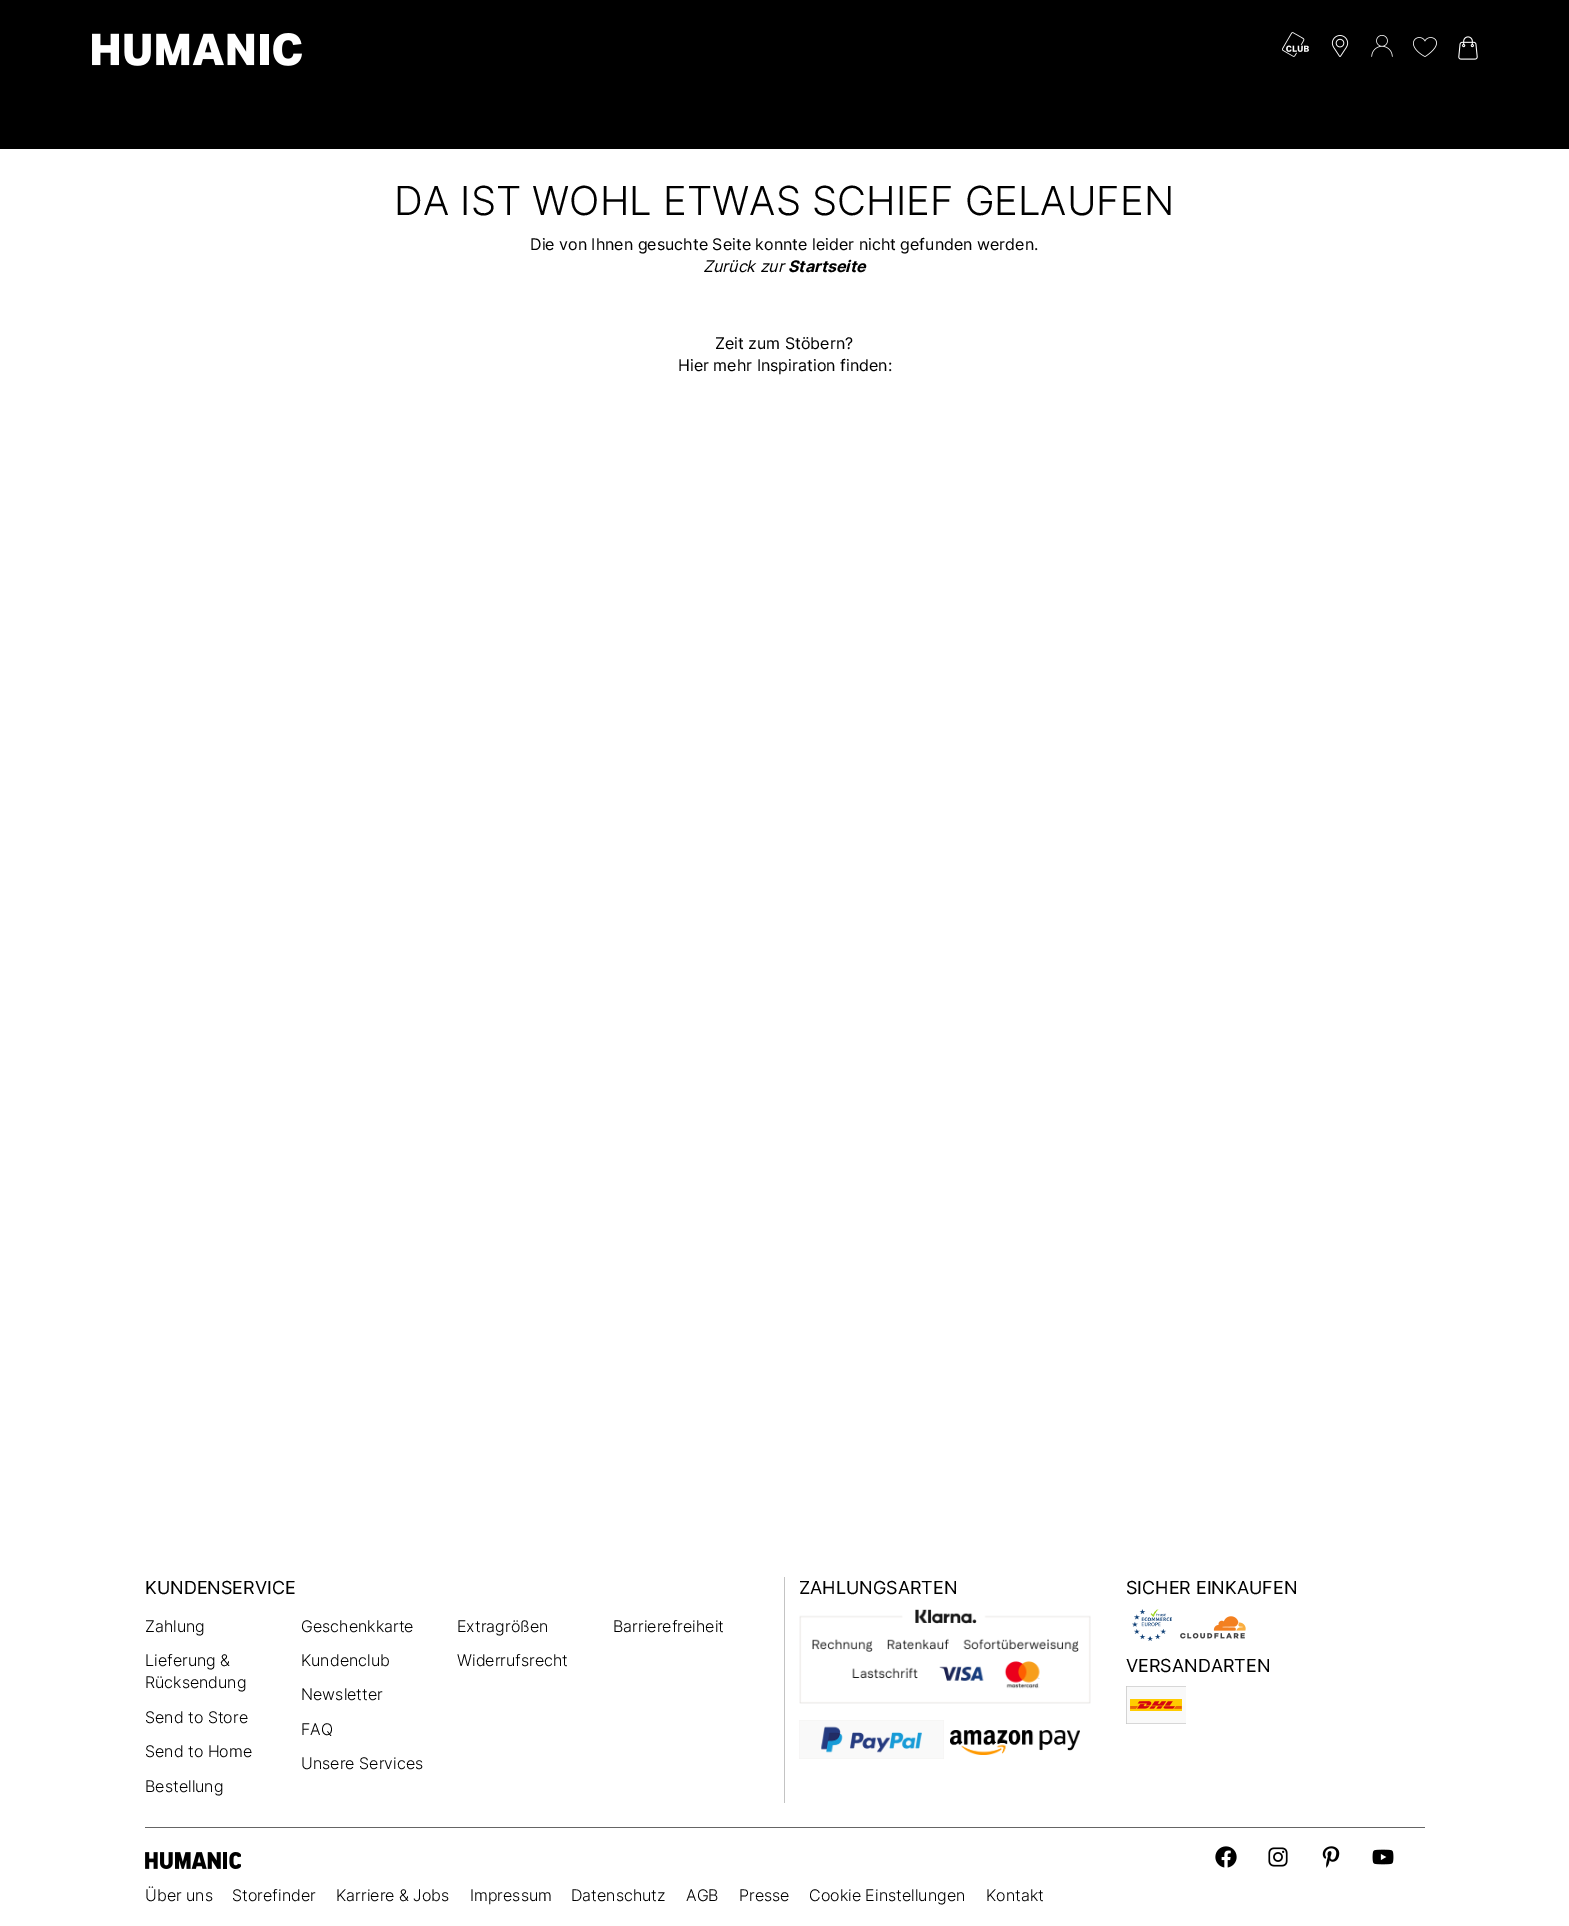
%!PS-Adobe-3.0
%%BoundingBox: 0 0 1569 1926
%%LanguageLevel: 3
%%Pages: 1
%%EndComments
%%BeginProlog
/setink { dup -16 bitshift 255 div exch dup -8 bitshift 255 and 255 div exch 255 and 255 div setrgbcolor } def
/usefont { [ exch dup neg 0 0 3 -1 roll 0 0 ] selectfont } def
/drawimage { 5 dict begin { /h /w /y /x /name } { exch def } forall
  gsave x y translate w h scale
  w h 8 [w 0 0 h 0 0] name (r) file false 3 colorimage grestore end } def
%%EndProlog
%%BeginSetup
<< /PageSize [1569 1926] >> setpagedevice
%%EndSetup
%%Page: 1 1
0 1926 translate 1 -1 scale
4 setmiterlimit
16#FFFFFF setink
0 0 1569 1926 rectfill
16#000000 setink
0 0 1569 149 rectfill
(img1.raw) 92 33 210 33 drawimage
(img2.raw) 1282 32 27 25 drawimage
(img3.raw) 1331 35 18 22 drawimage
(img4.raw) 1371 35 22 22 drawimage
(img5.raw) 1413 37 24 20 drawimage
(img6.raw) 1458 36 20 24 drawimage
/Inter-Light 40 usefont
394 215 moveto (DA IST WOHL ETWAS SCHIEF GELAUFEN) show
/Inter-Regular 16 usefont
530 250 moveto (Die von Ihnen gesuchte Seite konnte leider nicht gefunden werden.) show
/Inter-Italic 16 usefont
703 272 moveto (Zurück zur) show
/Inter-BoldItalic 16 usefont
788 272 moveto (Startseite) show
/Inter-Regular 16 usefont
715 349 moveto (Zeit zum Stöbern?) show
678 371 moveto (Hier mehr Inspiration finden:) show
16#C3C3C3 setink
784 1577 1 226 rectfill
/Inter-Regular 18 usefont
16#000000 setink
145 1594 moveto (KUNDENSERVICE) show
/Inter-Light 16 usefont
[
    [(Zahlung) 145 1632]
    [(Lieferung &) 145 1666]
    [(Rücksendung) 145 1688]
    [(Send to Store) 145 1723]
    [(Send to Home) 145 1757]
    [(Bestellung) 145 1792]
    [(Geschenkkarte) 301 1632]
    [(Kundenclub) 301 1666]
    [(Newsletter) 301 1700]
    [(FAQ) 301 1735]
    [(Unsere Services) 301 1769]
    [(Extragrößen) 457 1632]
    [(Widerrufsrecht) 457 1666]
    [(Barrierefreiheit) 613 1632]
] { aload pop moveto show } forall
/Inter-Regular 18 usefont
799 1594 moveto (ZAHLUNGSARTEN) show
(img7.raw) 799 1609 292 95 drawimage
(img8.raw) 799 1720 145 39 drawimage
(img9.raw) 950 1730 130 25 drawimage
1126 1594 moveto (SICHER EINKAUFEN) show
(img10.raw) 1132 1609 40 32 drawimage
(img11.raw) 1180 1616 66 23 drawimage
1126 1672 moveto (VERSANDARTEN) show
(img12.raw) 1126 1686 60 38 drawimage
16#656565 setink
145 1827 1280 1 rectfill
(img13.raw) 145 1852 96 17 drawimage
(img14.raw) 1215 1846 22 22 drawimage
(img15.raw) 1268 1847 20 20 drawimage
(img16.raw) 1322 1846 18 22 drawimage
(img17.raw) 1372 1849 22 16 drawimage
/Inter-Light 16 usefont
16#000000 setink
[
    [(Über uns) 145 1901]
    [(Storefinder) 232 1901]
    [(Karriere & Jobs) 336 1901]
    [(Impressum) 470 1901]
    [(Datenschutz) 571 1901]
    [(AGB) 686 1901]
    [(Presse) 739 1901]
    [(Cookie Einstellungen) 809 1901]
    [(Kontakt) 986 1901]
] { aload pop moveto show } forall
showpage
%%EOF
